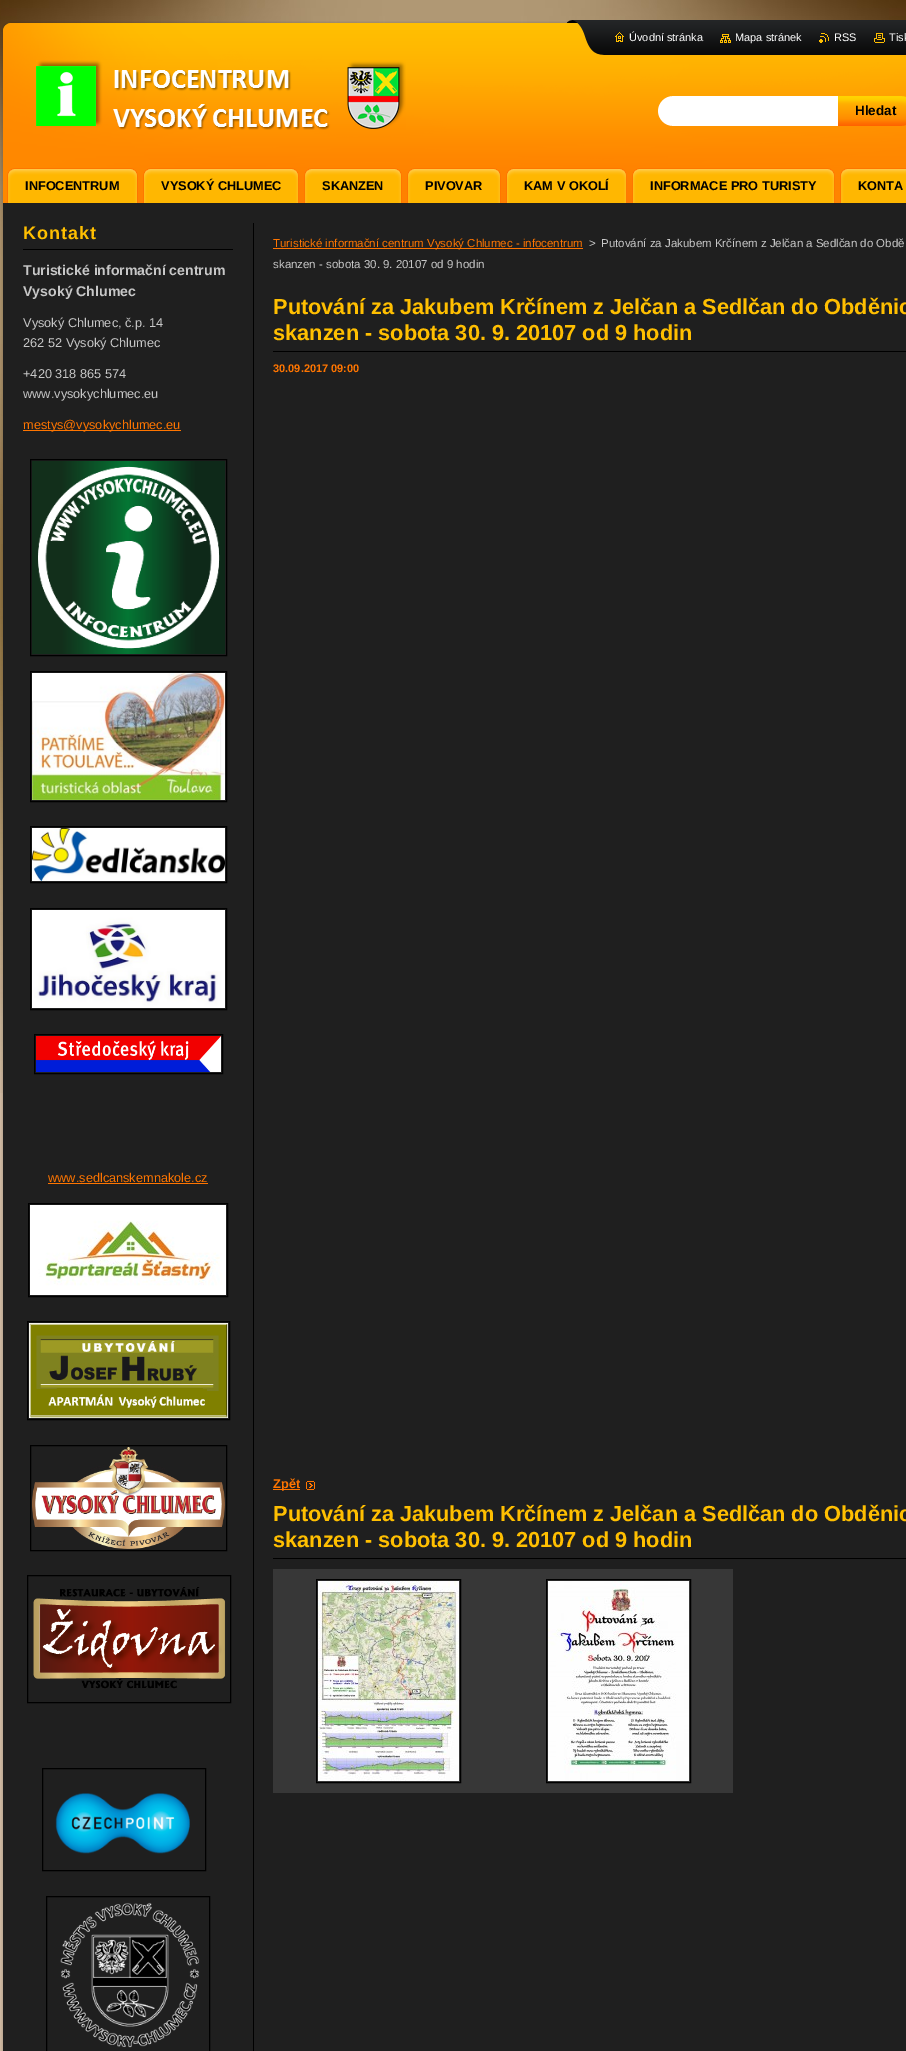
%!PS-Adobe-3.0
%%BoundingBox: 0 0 906 2051
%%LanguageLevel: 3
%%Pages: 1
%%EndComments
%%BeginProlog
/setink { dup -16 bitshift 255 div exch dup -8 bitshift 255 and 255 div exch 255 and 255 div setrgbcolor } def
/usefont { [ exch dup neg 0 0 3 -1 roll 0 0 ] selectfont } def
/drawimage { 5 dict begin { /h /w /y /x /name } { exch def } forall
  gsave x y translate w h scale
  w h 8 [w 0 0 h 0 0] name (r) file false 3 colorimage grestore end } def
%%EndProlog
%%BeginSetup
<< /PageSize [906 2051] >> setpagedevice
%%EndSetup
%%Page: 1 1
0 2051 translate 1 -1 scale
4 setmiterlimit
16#CEB8A1 setink
0 0 906 2051 rectfill
(img1.raw) 0 696 3 397 drawimage
(img2.raw) 0 0 906 696 drawimage
(img3.raw) 1 21 905 182 drawimage
(img4.raw) 36 60 370 70 drawimage
(img5.raw) 567 20 37 35 drawimage
(img6.raw) 604 20 302 35 drawimage
(img7.raw) 615 32 9 10 drawimage
/LiberationSans-Regular 11 usefont
16#FFFFFF setink
629 41 moveto (Úvodní stránka) show
(img8.raw) 720 34 11 9 drawimage
735 41 moveto (Mapa stránek) show
(img9.raw) 819 33 10 10 drawimage
834 41 moveto (RSS) show
(img10.raw) 874 33 11 10 drawimage
889 41 moveto (Tisk) show
(img11.raw) 658 96 180 30 drawimage
(img12.raw) 838 96 68 30 drawimage
/LiberationSans-Bold 13.5 usefont
16#000000 setink
855 115 moveto (Hledat) show
(img13.raw) 7 168 8 35 drawimage
(img14.raw) 15 168 123 35 drawimage
/LiberationSans-Bold 12.75 usefont
25 190 moveto (INFOCENTRUM) show
(img15.raw) 143 168 8 35 drawimage
(img16.raw) 151 168 148 35 drawimage
161 190 moveto (VYSOKÝ CHLUMEC) show
(img17.raw) 304 168 8 35 drawimage
(img18.raw) 312 168 90 35 drawimage
322 190 moveto (SKANZEN) show
(img19.raw) 407 168 8 35 drawimage
(img20.raw) 415 168 86 35 drawimage
425 190 moveto (PIVOVAR) show
(img21.raw) 506 168 8 35 drawimage
(img22.raw) 514 168 113 35 drawimage
524 190 moveto (KAM V OKOLÍ) show
(img23.raw) 632 168 8 35 drawimage
(img24.raw) 640 168 195 35 drawimage
650 190 moveto (INFORMACE PRO TURISTY) show
(img25.raw) 840 168 8 35 drawimage
(img26.raw) 848 168 58 35 drawimage
858 190 moveto (KONTA) show
(img27.raw) 1 203 905 1848 drawimage
253 223 1 1828 rectfill
23 249 210 1 rectfill
/LiberationSans-Bold 18 usefont
16#FFBF01 setink
23 239 moveto 1 0 (Kontakt) ashow
/LiberationSans-Bold 14.1 usefont
16#C7C7C7 setink
23 275 moveto (Turistické informační centrum) show
23 296 moveto (Vysoký Chlumec) show
/LiberationSans-Regular 12.75 usefont
[
    [(Vysoký Chlumec, č.p. 14) 23 327]
    [(262 52 Vysoký Chlumec) 23 347]
    [(+420 318 865 574) 23 378]
    [(www.vysokychlumec.eu) 23 398]
] { aload pop moveto show } forall
16#FF7500 setink
23 430 158 1 rectfill
23 429 moveto (mestys@vysokychlumec.eu) show
16#000000 setink
30.5 459.5 196 196 rectstroke
(img28.raw) 32 461 193 193 drawimage
30.5 671.5 196 130 rectstroke
(img29.raw) 32 673 193 127 drawimage
30.5 826.5 196 56 rectstroke
(img30.raw) 32 828 193 53 drawimage
30.5 908.5 196 101 rectstroke
(img31.raw) 32 910 193 98 drawimage
34.5 1034.5 188 39 rectstroke
(img32.raw) 36 1036 185 36 drawimage
16#FF7500 setink
48 1182 moveto (www.sedlcanskemnakole.cz) show
48 1183 160 1 rectfill
16#000000 setink
28.5 1203.5 199 93 rectstroke
(img33.raw) 30 1205 196 90 drawimage
27.5 1321.5 202 98 rectstroke
(img34.raw) 29 1323 199 95 drawimage
30.5 1445.5 196 105 rectstroke
(img35.raw) 32 1447 193 102 drawimage
27.5 1575.5 203 127 rectstroke
(img36.raw) 33 1587 193 102 drawimage
42.5 1768.5 163 102 rectstroke
(img37.raw) 55 1793 135 61 drawimage
46.5 1896.5 163 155 rectstroke
(img38.raw) 60 1902 140 146 drawimage
16#FF7500 setink
273 248 310 1 rectfill
/LiberationSans-Regular 11.5 usefont
273 247 moveto (Turistické informační centrum Vysoký Chlumec - infocentrum) show
16#C7C7C7 setink
[
    [(>) 589 247]
    [(Putování za Jakubem Krčínem z Jelčan a Sedlčan do Obdě) 601 247]
    [(skanzen - sobota 30. 9. 20107 od 9 hodin) 273 268]
] { aload pop moveto show } forall
16#000000 setink
273 351 633 1 rectfill
/LiberationSans-Bold 21.75 usefont
16#FFBF01 setink
273 314 moveto (Putování za Jakubem Krčínem z Jelčan a Sedlčan do Obděnic) show
273 340 moveto (skanzen - sobota 30. 9. 20107 od 9 hodin) show
/LiberationSans-Bold 11 usefont
16#FF7500 setink
273 372 moveto (30.09.2017 09:00) show
(img39.raw) 306 1481 9 9 drawimage
273 1489 27 1 rectfill
/LiberationSans-Bold 12.75 usefont
273 1488 moveto (Zpět) show
16#000000 setink
273 1558 633 1 rectfill
/LiberationSans-Bold 21.75 usefont
16#FFBF01 setink
273 1521 moveto (Putování za Jakubem Krčínem z Jelčan a Sedlčan do Obděnic) show
273 1547 moveto (skanzen - sobota 30. 9. 20107 od 9 hodin) show
16#373737 setink
273 1569 460 224 rectfill
16#000000 setink
316.5 1579.5 144 203 rectstroke
(img40.raw) 318 1581 141 200 drawimage
546.5 1579.5 144 203 rectstroke
(img41.raw) 548 1581 141 200 drawimage
showpage
%%EOF
